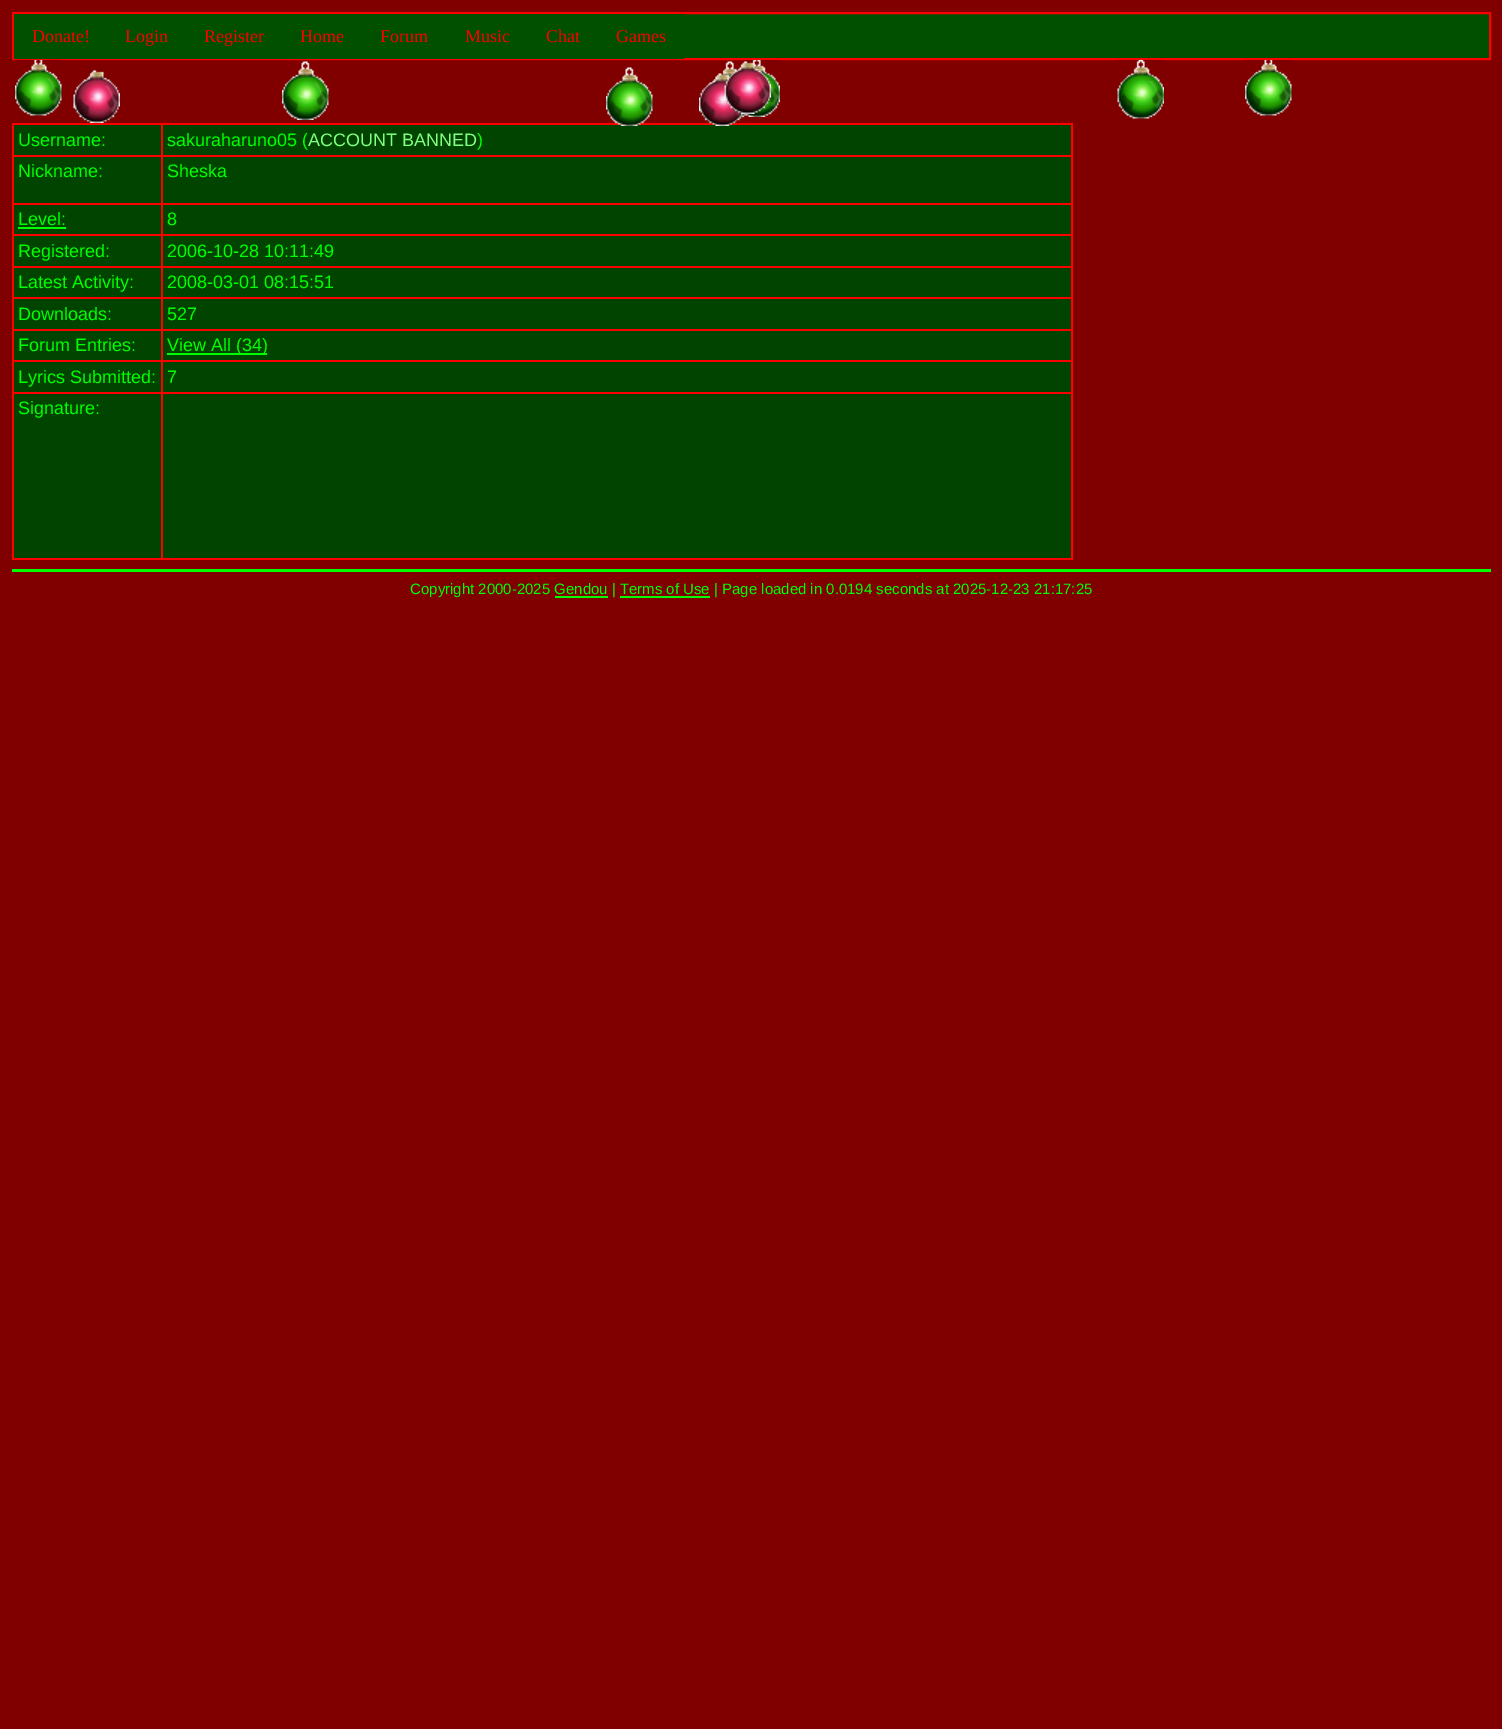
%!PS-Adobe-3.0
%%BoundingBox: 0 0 1502 1729
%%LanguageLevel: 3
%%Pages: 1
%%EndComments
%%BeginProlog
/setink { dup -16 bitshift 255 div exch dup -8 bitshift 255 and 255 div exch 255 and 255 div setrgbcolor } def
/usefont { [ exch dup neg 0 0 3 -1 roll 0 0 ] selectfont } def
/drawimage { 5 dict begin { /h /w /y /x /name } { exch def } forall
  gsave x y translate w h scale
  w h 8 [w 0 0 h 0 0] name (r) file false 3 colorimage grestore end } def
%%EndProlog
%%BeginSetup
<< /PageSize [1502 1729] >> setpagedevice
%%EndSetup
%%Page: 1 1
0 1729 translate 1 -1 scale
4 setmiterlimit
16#800000 setink
0 0 1502 1729 rectfill
16#005000 setink
684 14 805 44 rectfill
16#FF0000 setink
2 setlinewidth
13 13 1477 46 rectstroke
16#005000 setink
14 14 670 45 rectfill
/LiberationSerif-Regular 18 usefont
16#FF0000 setink
[
    [(Donate!) 32 42]
    [(Login) 125 42]
    [(Register) 204 42]
    [(Home) 300 42]
    [(Forum) 380 42]
    [(Music) 465 42]
    [(Chat) 546 42]
    [(Games) 616 42]
] { aload pop moveto show } forall
(img1.raw) 15 60 47 56 drawimage
(img2.raw) 282 61 47 59 drawimage
(img4.raw) 745 60 35 57 drawimage
(img3.raw) 709 61 39 59 drawimage
(img5.raw) 1117 60 47 59 drawimage
(img6.raw) 1245 60 47 56 drawimage
(img7.raw) 73 70 47 53 drawimage
[
    [14 125 1057 433 16#004400]
    [1071 123 2 437 16#FF0000]
    [161 123 912 2 16#FF0000]
] { aload pop setink rectfill } forall
(img8.raw) 606 67 47 59 drawimage
(img9.raw) 699 73 44 53 drawimage
(img10.raw) 724 61 47 53 drawimage
[
    [12 558 1061 2 16#FF0000]
    [161 155 912 2 16#FF0000]
    [161 203 912 2 16#FF0000]
    [161 234 912 2 16#FF0000]
    [161 266 912 2 16#FF0000]
    [161 297 912 2 16#FF0000]
    [161 329 912 2 16#FF0000]
    [161 360 912 2 16#FF0000]
    [161 392 912 2 16#FF0000]
    [161 392 2 168 16#FF0000]
    [12 392 150 2 16#FF0000]
    [161 360 2 33 16#FF0000]
    [12 360 150 2 16#FF0000]
    [161 329 2 33 16#FF0000]
    [12 329 150 2 16#FF0000]
    [161 297 2 33 16#FF0000]
    [12 297 150 2 16#FF0000]
    [161 266 2 33 16#FF0000]
    [12 266 150 2 16#FF0000]
    [161 234 2 33 16#FF0000]
    [12 234 150 2 16#FF0000]
    [161 203 2 33 16#FF0000]
    [12 203 150 2 16#FF0000]
    [161 155 2 49 16#FF0000]
    [12 155 150 2 16#FF0000]
    [161 123 2 33 16#FF0000]
    [12 123 150 2 16#FF0000]
    [12 392 2 168 16#FF0000]
    [12 360 2 33 16#FF0000]
    [12 329 2 33 16#FF0000]
    [12 297 2 33 16#FF0000]
    [12 266 2 33 16#FF0000]
    [12 234 2 33 16#FF0000]
    [12 203 2 33 16#FF0000]
    [12 155 2 49 16#FF0000]
    [12 123 2 33 16#FF0000]
] { aload pop setink rectfill } forall
/LiberationSans-Regular 18 usefont
16#00FF00 setink
18 146 moveto (Username:) show
167 146 moveto (sakuraharuno05 \() show
16#80FF80 setink
308 146 moveto (ACCOUNT BANNED) show
16#00FF00 setink
[
    [(\)) 477 146]
    [(Nickname:) 18 177]
    [(Sheska) 167 177]
    [(Level:) 18 225]
] { aload pop moveto show } forall
18 227 48 2 rectfill
[
    [(8) 167 225]
    [(Registered:) 18 257]
    [(2006-10-28 10:11:49) 167 257]
    [(Latest Activity:) 18 288]
    [(2008-03-01 08:15:51) 167 288]
    [(Downloads:) 18 320]
    [(527) 167 320]
    [(Forum Entries:) 18 351]
] { aload pop moveto show } forall
167 353 100 2 rectfill
[
    [(View All \(34\)) 167 351]
    [(Lyrics Submitted:) 18 383]
    [(7) 167 383]
    [(Signature:) 18 414]
] { aload pop moveto show } forall
12 569 1479 3 rectfill
/LiberationSans-Regular 15 usefont
410 594 moveto (Copyright 2000-2025 Gendou | Terms of Use | Page loaded in 0.0194 seconds at 2025-12-23 21:17:25) show
555 596 53 2 rectfill
620 596 90 2 rectfill
showpage
%%EOF
